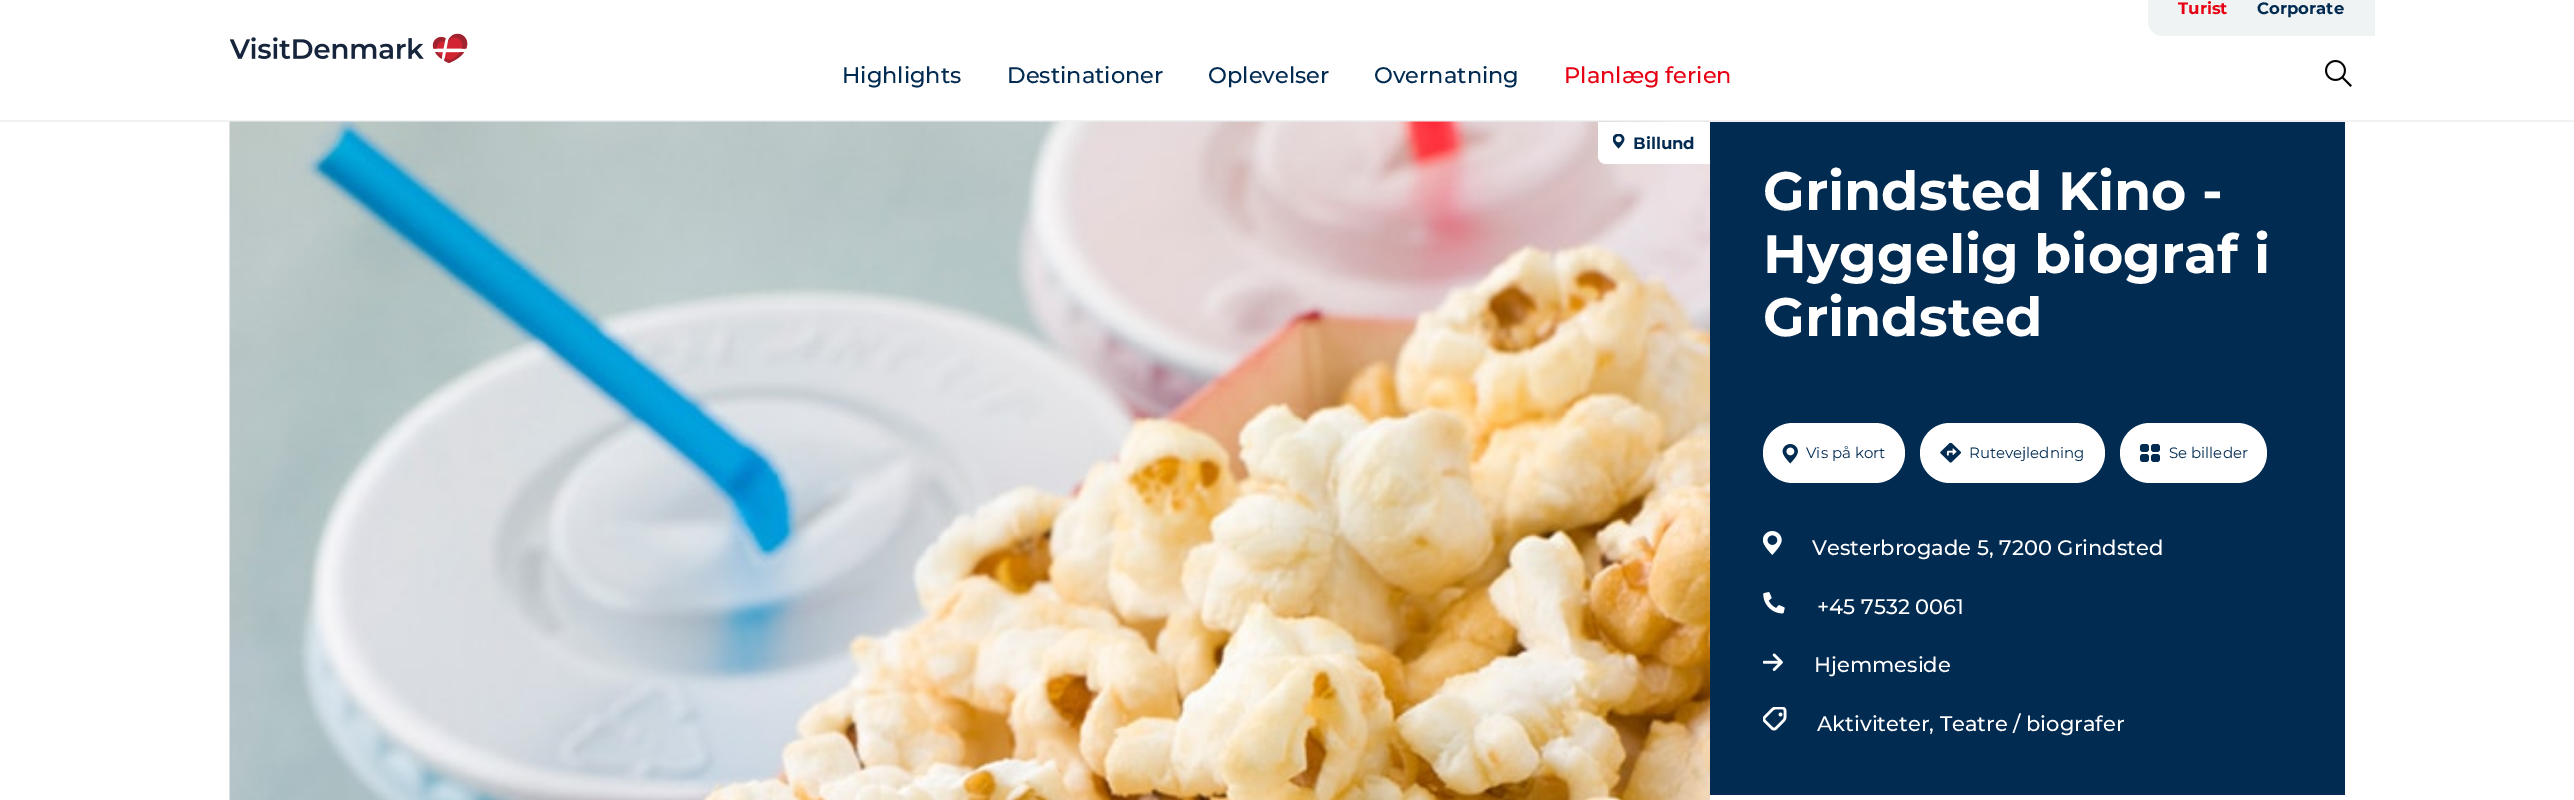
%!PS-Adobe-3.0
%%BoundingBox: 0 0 2574 800
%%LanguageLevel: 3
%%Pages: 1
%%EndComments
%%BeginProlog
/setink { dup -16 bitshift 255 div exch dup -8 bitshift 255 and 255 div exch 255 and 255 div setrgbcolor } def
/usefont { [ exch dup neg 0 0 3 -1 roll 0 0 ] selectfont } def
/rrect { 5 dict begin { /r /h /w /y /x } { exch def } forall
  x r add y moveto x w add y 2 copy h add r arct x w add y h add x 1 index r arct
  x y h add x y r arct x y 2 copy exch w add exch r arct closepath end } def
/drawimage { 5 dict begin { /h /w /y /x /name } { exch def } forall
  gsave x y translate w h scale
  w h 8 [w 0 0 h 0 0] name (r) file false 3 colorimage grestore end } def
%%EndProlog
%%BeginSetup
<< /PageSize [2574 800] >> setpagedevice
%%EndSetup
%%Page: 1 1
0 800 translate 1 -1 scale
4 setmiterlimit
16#FFFFFF setink
0 0 2574 800 rectfill
16#F0F1F3 setink
0 120 2574 2 rectfill
(img1.raw) 230 33 238 30 drawimage
16#EFF3F4 setink
2148 -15 moveto 2375 -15 lineto 2375 36 lineto 2163 36 lineto 2154.5 36 2148 29.5 2148 21 curveto closepath fill
/Montserrat-Bold 16.5 usefont
16#E70013 setink
2178 14 moveto (Turist) show
16#022B52 setink
2257 14 moveto (Corporate) show
/Montserrat-Medium 22.5 usefont
[
    [(Highlights) 842 83]
    [(Destinationer) 1007 83]
    [(Oplevelser) 1208 83]
    [(Overnatning) 1374 83]
] { aload pop moveto show } forall
16#E70013 setink
1564 83 moveto (Planlæg ferien) show
(img2.raw) 2325 60 27 27 drawimage
(img3.raw) 229 121 1481 679 drawimage
16#FFFFFF setink
1598 122 moveto 1710 122 lineto 1710 164 lineto 1606 164 lineto 1601.5 164 1598 160.5 1598 156 curveto closepath fill
(img4.raw) 1613 134 12 15 drawimage
/Montserrat-Bold 16.5 usefont
16#022B52 setink
1633 149 moveto (Billund) show
1710 122 635 673 rectfill
/Montserrat-Bold 54 usefont
16#FFFFFF setink
[
    [(Grindsted Kino -) 1763 210]
    [(Hyggelig biograf i) 1763 273]
    [(Grindsted) 1763 336]
] { aload pop moveto show } forall
1763 423 142 60 30 rrect fill
(img5.raw) 1782 444 16 20 drawimage
/Montserrat-Regular 15 usefont
16#022B52 setink
1806 458 moveto (Vis på kort) show
16#FFFFFF setink
1920 423 185 60 30 rrect fill
(img6.raw) 1940 443 21 20 drawimage
16#022B52 setink
1969 458 moveto (Rutevejledning) show
16#FFFFFF setink
2120 423 147 60 30 rrect fill
16#022B52 setink
2151 444 9 8 3 rrect fill
2151 454 9 8 3 rrect fill
2140 444 9 8 3 rrect fill
2140 454 9 8 3 rrect fill
2169 458 moveto (Se billeder) show
(img7.raw) 1763 531 19 24 drawimage
/Montserrat-Medium 21 usefont
16#FFFFFF setink
1812 555 moveto (Vesterbrogade 5, 7200 Grindsted) show
(img8.raw) 1763 592 22 22 drawimage
1817 614 moveto (+45 7532 0061) show
(img9.raw) 1763 653 20 18 drawimage
1814 672 moveto (Hjemmeside) show
(img10.raw) 1763 707 24 24 drawimage
1817 731 moveto (Aktiviteter, Teatre / biografer) show
showpage
%%EOF
